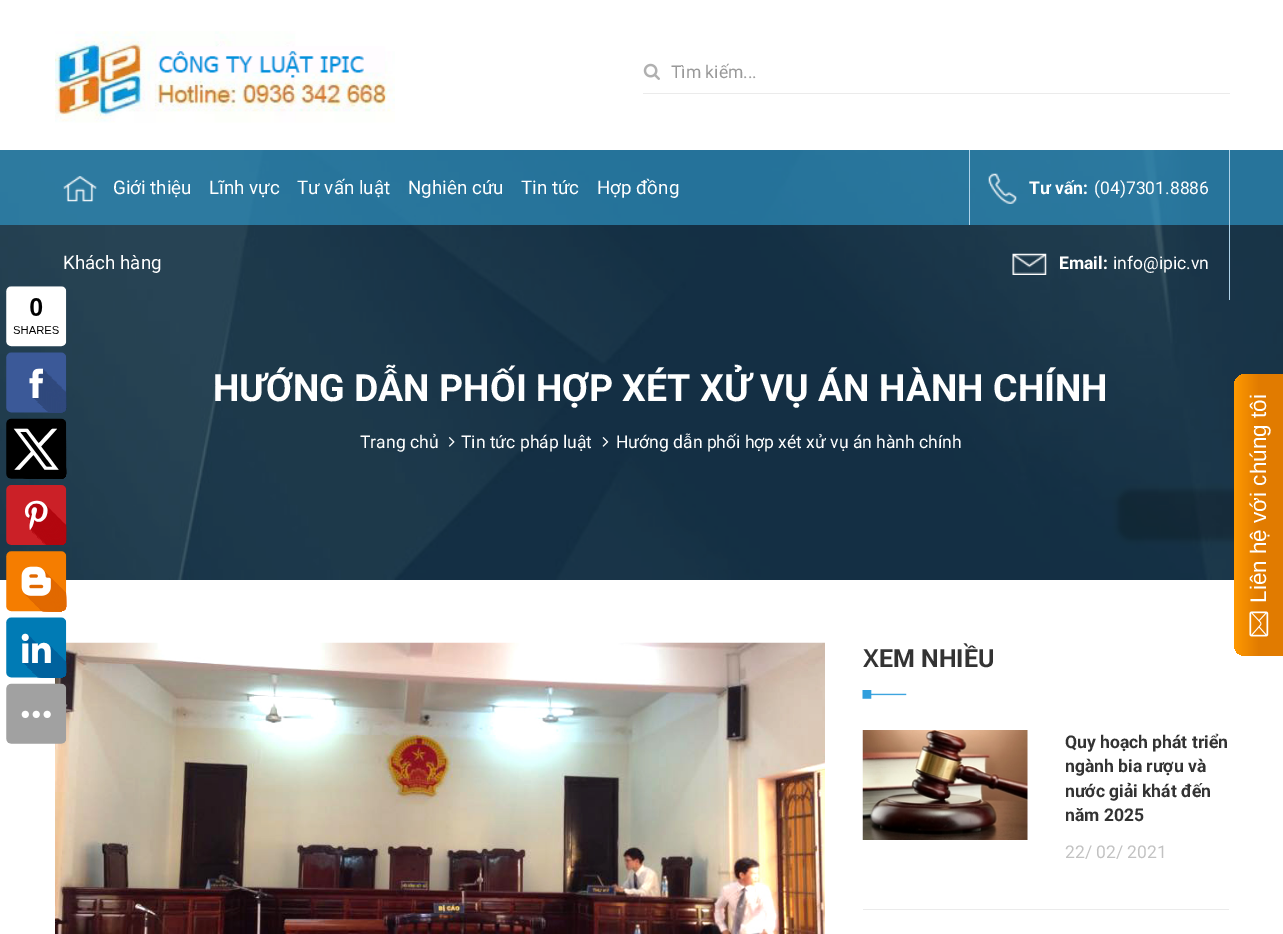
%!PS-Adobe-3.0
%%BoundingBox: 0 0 1283 934
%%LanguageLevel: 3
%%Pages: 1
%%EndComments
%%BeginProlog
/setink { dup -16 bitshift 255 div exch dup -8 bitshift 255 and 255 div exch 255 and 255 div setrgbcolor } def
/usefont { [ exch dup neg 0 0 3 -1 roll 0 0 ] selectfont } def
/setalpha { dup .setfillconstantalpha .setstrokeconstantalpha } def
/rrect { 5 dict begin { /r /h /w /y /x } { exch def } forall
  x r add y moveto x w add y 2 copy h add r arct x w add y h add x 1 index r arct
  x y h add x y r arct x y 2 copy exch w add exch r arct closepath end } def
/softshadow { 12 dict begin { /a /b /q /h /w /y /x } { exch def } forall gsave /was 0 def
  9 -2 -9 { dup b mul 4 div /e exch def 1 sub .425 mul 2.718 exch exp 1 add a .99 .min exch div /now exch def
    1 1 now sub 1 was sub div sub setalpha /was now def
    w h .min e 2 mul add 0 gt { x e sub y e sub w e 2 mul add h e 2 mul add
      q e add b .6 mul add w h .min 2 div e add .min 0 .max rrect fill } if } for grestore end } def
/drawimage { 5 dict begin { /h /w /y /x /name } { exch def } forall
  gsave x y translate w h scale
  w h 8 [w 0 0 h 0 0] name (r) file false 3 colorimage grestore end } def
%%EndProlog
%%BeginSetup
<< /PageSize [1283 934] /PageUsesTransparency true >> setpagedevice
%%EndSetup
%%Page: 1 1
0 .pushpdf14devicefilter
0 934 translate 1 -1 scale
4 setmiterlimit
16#FFFFFF setink
0 0 1283 934 rectfill
(img7.raw) 0 150 1283 430 drawimage
(img10.raw) 55 642 770 292 drawimage
(img1.raw) 6 286 61 458 drawimage
(img2.raw) 55 31 340 92 drawimage
16#EBEBEB setink
643 93 587 1 rectfill
(img3.raw) 643 63 17 17 drawimage
/Roboto-Regular 17.5 usefont
16#999999 setink
671 78 moveto (Tìm kiếm...) show
0.6 setalpha
16#319FD3 setink
0 150 1283 75 rectfill
1 setalpha
(img4.raw) 63 176 34 26 drawimage
/Roboto-Regular 18.75 usefont
16#FFFFFF setink
[
    [(Giới thiệu) 113 194]
    [(Lĩnh vực) 209 194]
    [(Tư vấn luật) 297 194]
    [(Nghiên cứu) 408 194]
    [(Tin tức) 521 194]
    [(Hợp đồng) 597 194]
    [(Khách hàng) 63 269]
] { aload pop moveto show } forall
16#AFD3E9 setink
1229 150 1 150 rectfill
969 150 1 75 rectfill
(img5.raw) 988 173 29 31 drawimage
/Roboto-Bold 17.5 usefont
16#FFFFFF setink
1029 194 moveto (Tư vấn:) show
/Roboto-Regular 17.5 usefont
1094 194 moveto (\(04\)7301.8886) show
(img6.raw) 1012 253 35 22 drawimage
/Roboto-Bold 17.5 usefont
1059 269 moveto (Email:) show
/Roboto-Regular 17.5 usefont
1113 269 moveto (info@ipic.vn) show
/Roboto-Bold 37.5 usefont
213 401 moveto (HƯỚNG DẪN PHỐI HỢP XÉT XỬ VỤ ÁN HÀNH CHÍNH) show
/Roboto-Regular 17.5 usefont
360 448 moveto (Trang chủ) show
(img8.raw) 448 437 7 10 drawimage
461 448 moveto (Tin tức pháp luật) show
(img9.raw) 602 437 7 10 drawimage
616 448 moveto (Hướng dẫn phối hợp xét xử vụ án hành chính) show
(img11.raw) 862 690 45 9 drawimage
/NotoSans-SemiBold 25 usefont
16#333333 setink
863 667 moveto (X) show
/Roboto-Bold 25 usefont
879 667 moveto (EM NHIỀU) show
16#EBEBEB setink
863 909 366 1 rectfill
(img12.raw) 862 730 166 110 drawimage
/Roboto-Bold 17.5 usefont
16#333333 setink
[
    [(Quy hoạch phát triển) 1065 748]
    [(ngành bia rượu và) 1065 772]
    [(nước giải khát đến) 1065 797]
    [(năm 2025) 1065 821]
] { aload pop moveto show } forall
/Roboto-Regular 17.5 usefont
16#C2C2C2 setink
1065 858 moveto (22/ 02/ 2021) show
16#000000 setink
1118 490 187 50 13 3 0.2 softshadow
gsave 1234 644 moveto 1234 386 lineto 1234 380 1239 374 1246 374 curveto 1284 374 lineto 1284 656 lineto 1246 656 lineto 1239 656 1234 651 1234 644 curveto closepath clip newpath
<< /ShadingType 2 /ColorSpace /DeviceRGB /Coords [1234 515 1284 515] /Extend [true true] /Function << /FunctionType 3 /Domain [0 1] /Functions [<< /FunctionType 2 /Domain [0 1] /C0 [1 0.6 0] /C1 [0.882 0.482 0] /N 1 >> << /FunctionType 2 /Domain [0 1] /C0 [0.882 0.482 0] /C1 [0.882 0.482 0] /N 1 >>] /Bounds [0.5] /Encode [0 1 0 1] >> >> shfill grestore
/LiberationSans-Regular 22.5 usefont
16#FFFFFF setink
gsave 1266 603 translate -90 rotate 0 0 moveto (Liên hệ với chúng tôi) show grestore
(img13.raw) 1249 611 20 26 drawimage
.poppdf14devicefilter showpage
%%EOF
